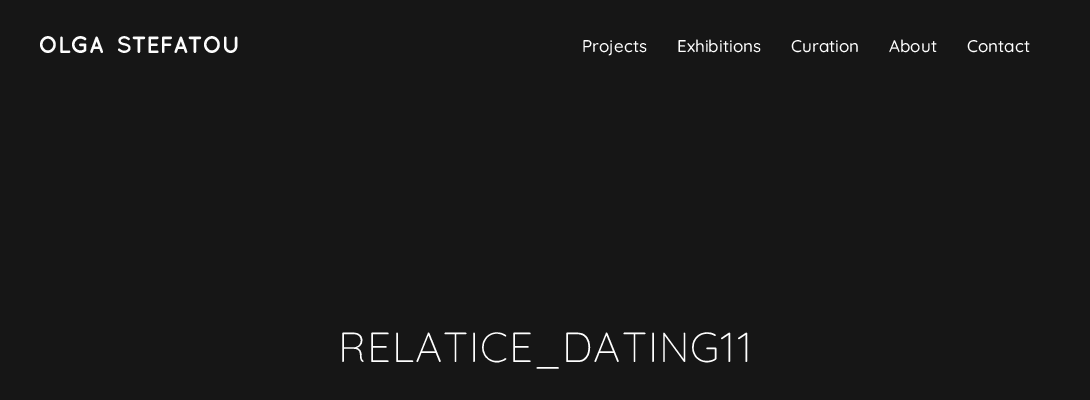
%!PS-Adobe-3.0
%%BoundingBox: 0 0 1090 400
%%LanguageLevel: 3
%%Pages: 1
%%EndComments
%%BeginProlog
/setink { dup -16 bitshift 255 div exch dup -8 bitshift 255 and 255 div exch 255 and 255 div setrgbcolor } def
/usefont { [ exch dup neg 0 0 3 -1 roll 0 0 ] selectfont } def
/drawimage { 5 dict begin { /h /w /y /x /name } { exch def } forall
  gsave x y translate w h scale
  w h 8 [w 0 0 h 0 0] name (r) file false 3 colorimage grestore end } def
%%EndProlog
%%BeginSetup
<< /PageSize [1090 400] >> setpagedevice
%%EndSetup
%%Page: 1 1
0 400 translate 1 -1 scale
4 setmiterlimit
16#161616 setink
0 0 1090 400 rectfill
(img1.raw) 40 36 198 17 drawimage
/Quicksand-Medium 17 usefont
16#FFFFFF setink
[
    [(Projects) 582 52]
    [(Exhibitions) 677 52]
    [(Curation) 791 52]
    [(About) 889 52]
    [(Contact) 967 52]
] { aload pop moveto show } forall
/Quicksand-Light 42 usefont
338 362 moveto 1 0 (RELATICE_DATING11) ashow
showpage
%%EOF
